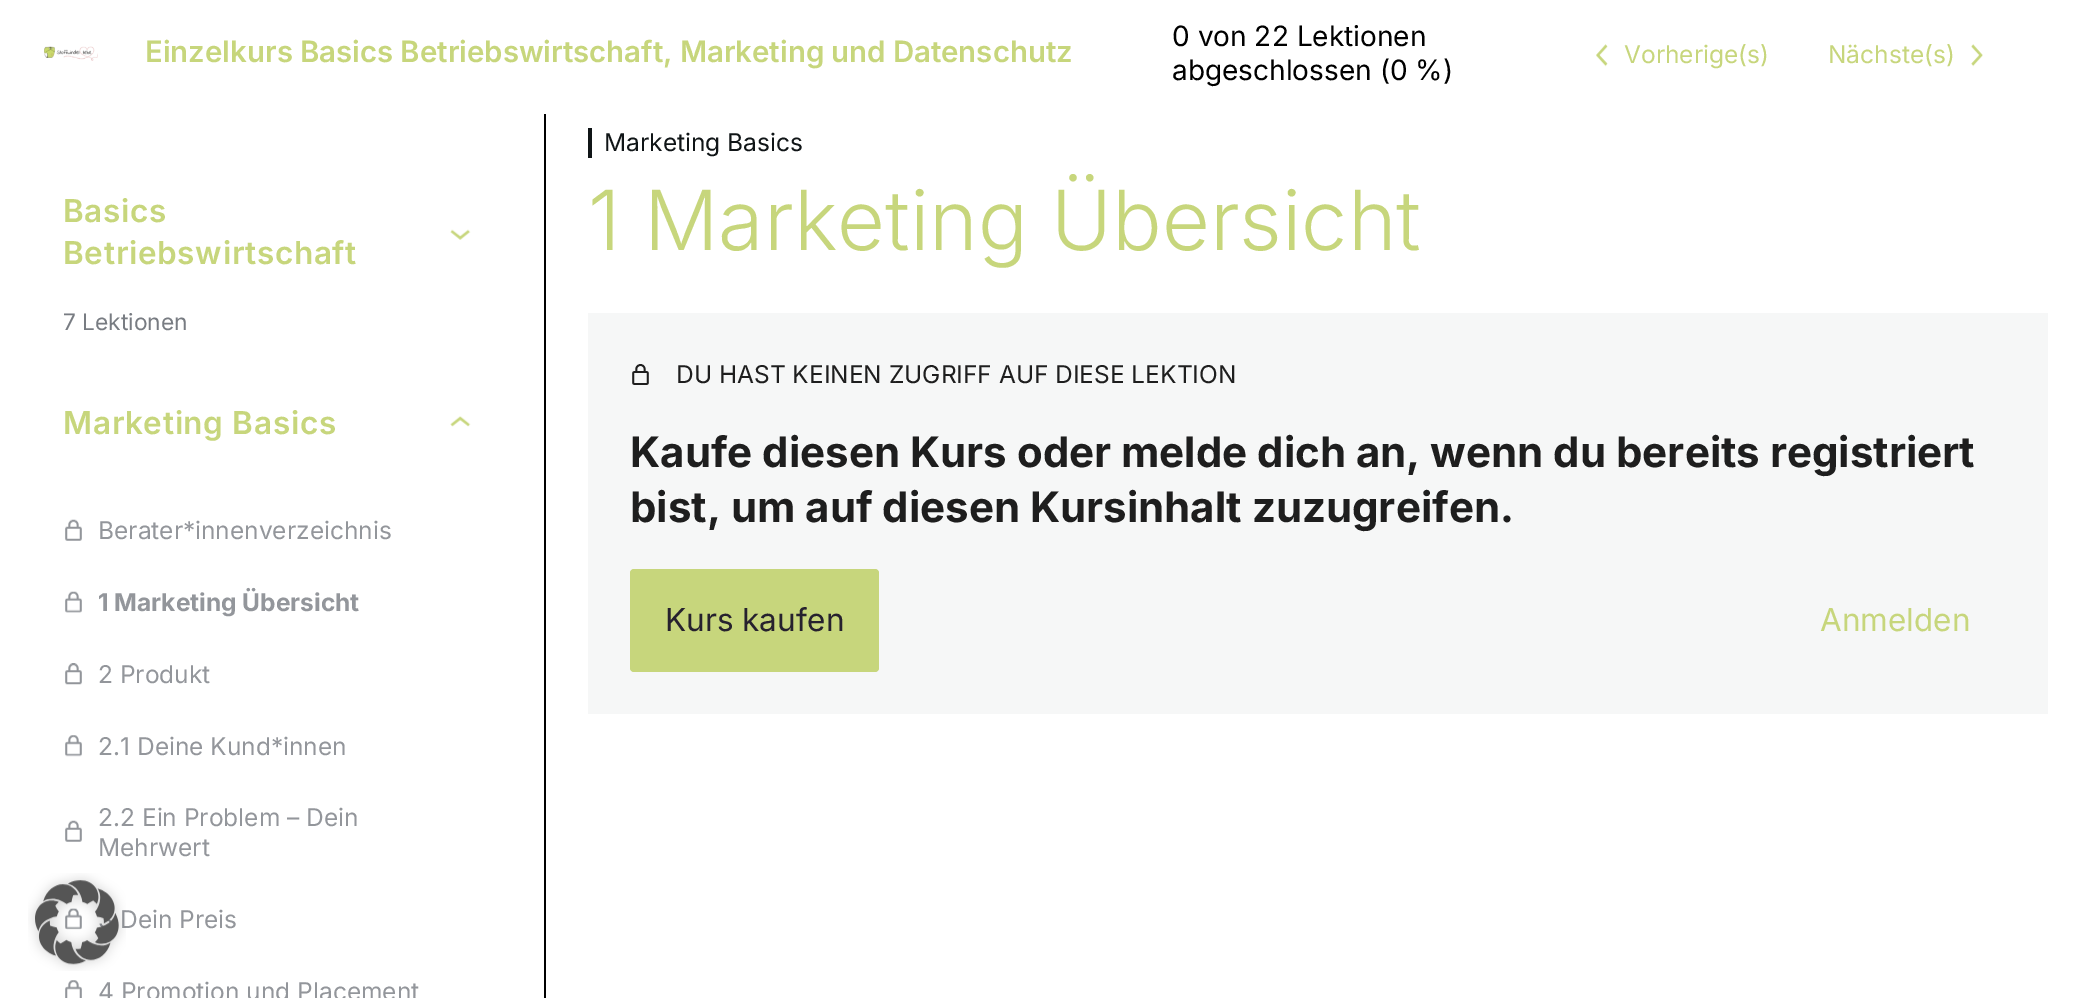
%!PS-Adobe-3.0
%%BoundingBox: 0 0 2088 998
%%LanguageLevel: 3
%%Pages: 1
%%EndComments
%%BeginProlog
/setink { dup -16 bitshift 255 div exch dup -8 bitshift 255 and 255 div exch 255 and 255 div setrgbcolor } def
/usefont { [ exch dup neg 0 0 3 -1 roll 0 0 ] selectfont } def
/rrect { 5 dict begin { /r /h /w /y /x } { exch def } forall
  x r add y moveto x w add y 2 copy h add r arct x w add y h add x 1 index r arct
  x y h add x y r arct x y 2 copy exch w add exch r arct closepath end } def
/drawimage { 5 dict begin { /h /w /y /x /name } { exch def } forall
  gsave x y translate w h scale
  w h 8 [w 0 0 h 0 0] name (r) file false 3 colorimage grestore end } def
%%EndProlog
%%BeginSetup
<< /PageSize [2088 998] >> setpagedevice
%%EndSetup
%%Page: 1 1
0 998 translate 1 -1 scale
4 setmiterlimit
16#FFFFFF setink
0 0 2088 998 rectfill
(img1.raw) 44 46 54 15 drawimage
/Inter-SemiBold 29.4 usefont
16#C7D67C setink
145 62 moveto -0.25 0 32 (Einzelkurs Basics Betriebswirtschaft, Marketing und Datenschutz) widthshow
/Inter-Regular 28 usefont
16#000000 setink
1172 46 moveto (0 von 22 Lektionen) show
1172 80 moveto (abgeschlossen \(0 %\)) show
(img2.raw) 1596 44 12 23 drawimage
/Inter-Regular 24.5 usefont
16#C7D67C setink
1624 63 moveto (Vorherige\(s\)) show
1828 63 moveto (Nächste\(s\)) show
(img3.raw) 1971 44 12 23 drawimage
16#000000 setink
544 114 2 884 rectfill
/Inter-SemiBold 31.5 usefont
16#C7D67C setink
63 222 moveto 0.7 0 (Basics) ashow
63 264 moveto 0.7 0 (Betriebswirtschaft) ashow
(img4.raw) 450 229 21 11 drawimage
/Inter-Regular 22.75 usefont
16#787C82 setink
63 330 moveto (7 Lektionen) show
/Inter-SemiBold 31.5 usefont
16#C7D67C setink
63 434 moveto 0.7 0 (Marketing Basics) ashow
(img5.raw) 450 416 21 11 drawimage
(img6.raw) 65 519 17 22 drawimage
/Inter-Regular 24.5 usefont
16#93969B setink
98 539 moveto (Berater*innenverzeichnis) show
(img7.raw) 65 591 17 22 drawimage
/Inter-Bold 24.5 usefont
98 611 moveto (1 Marketing Übersicht) show
(img8.raw) 65 663 17 22 drawimage
/Inter-Regular 24.5 usefont
98 683 moveto (2 Produkt) show
(img9.raw) 65 735 17 22 drawimage
98 755 moveto (2.1 Deine Kund*innen) show
(img10.raw) 65 820 17 22 drawimage
98 826 moveto (2.2 Ein Problem – Dein) show
98 856 moveto (Mehrwert) show
(img11.raw) 65 908 17 22 drawimage
120 928 moveto (Dein Preis) show
(img12.raw) 65 980 17 18 drawimage
98 1000 moveto (4 Promotion und Placement) show
16#101517 setink
588 128 4 30 rectfill
604 151 moveto (Marketing Basics) show
/Inter-Light 82.75 usefont
16#C7D67C setink
588 250 moveto (1 Marketing Übersicht) show
16#F6F7F7 setink
588 313 1460 401 rectfill
(img13.raw) 632 364 17 21 drawimage
/Inter-Regular 24.5 usefont
16#1E1E1E setink
676 383 moveto (DU HAST KEINEN ZUGRIFF AUF DIESE LEKTION) show
/Inter-Bold 42 usefont
630 467 moveto (Kaufe diesen Kurs oder melde dich an, wenn du bereits registriert) show
630 522 moveto (bist, um auf diesen Kursinhalt zuzugreifen.) show
16#C7D67C setink
630 569 249 103 4 rrect fill
/Inter-Regular 31.5 usefont
16#26212E setink
665 631 moveto (Kurs kaufen) show
16#C7D67C setink
1820 631 moveto (Anmelden) show
(img14.raw) 28 873 98 98 drawimage
showpage
%%EOF
